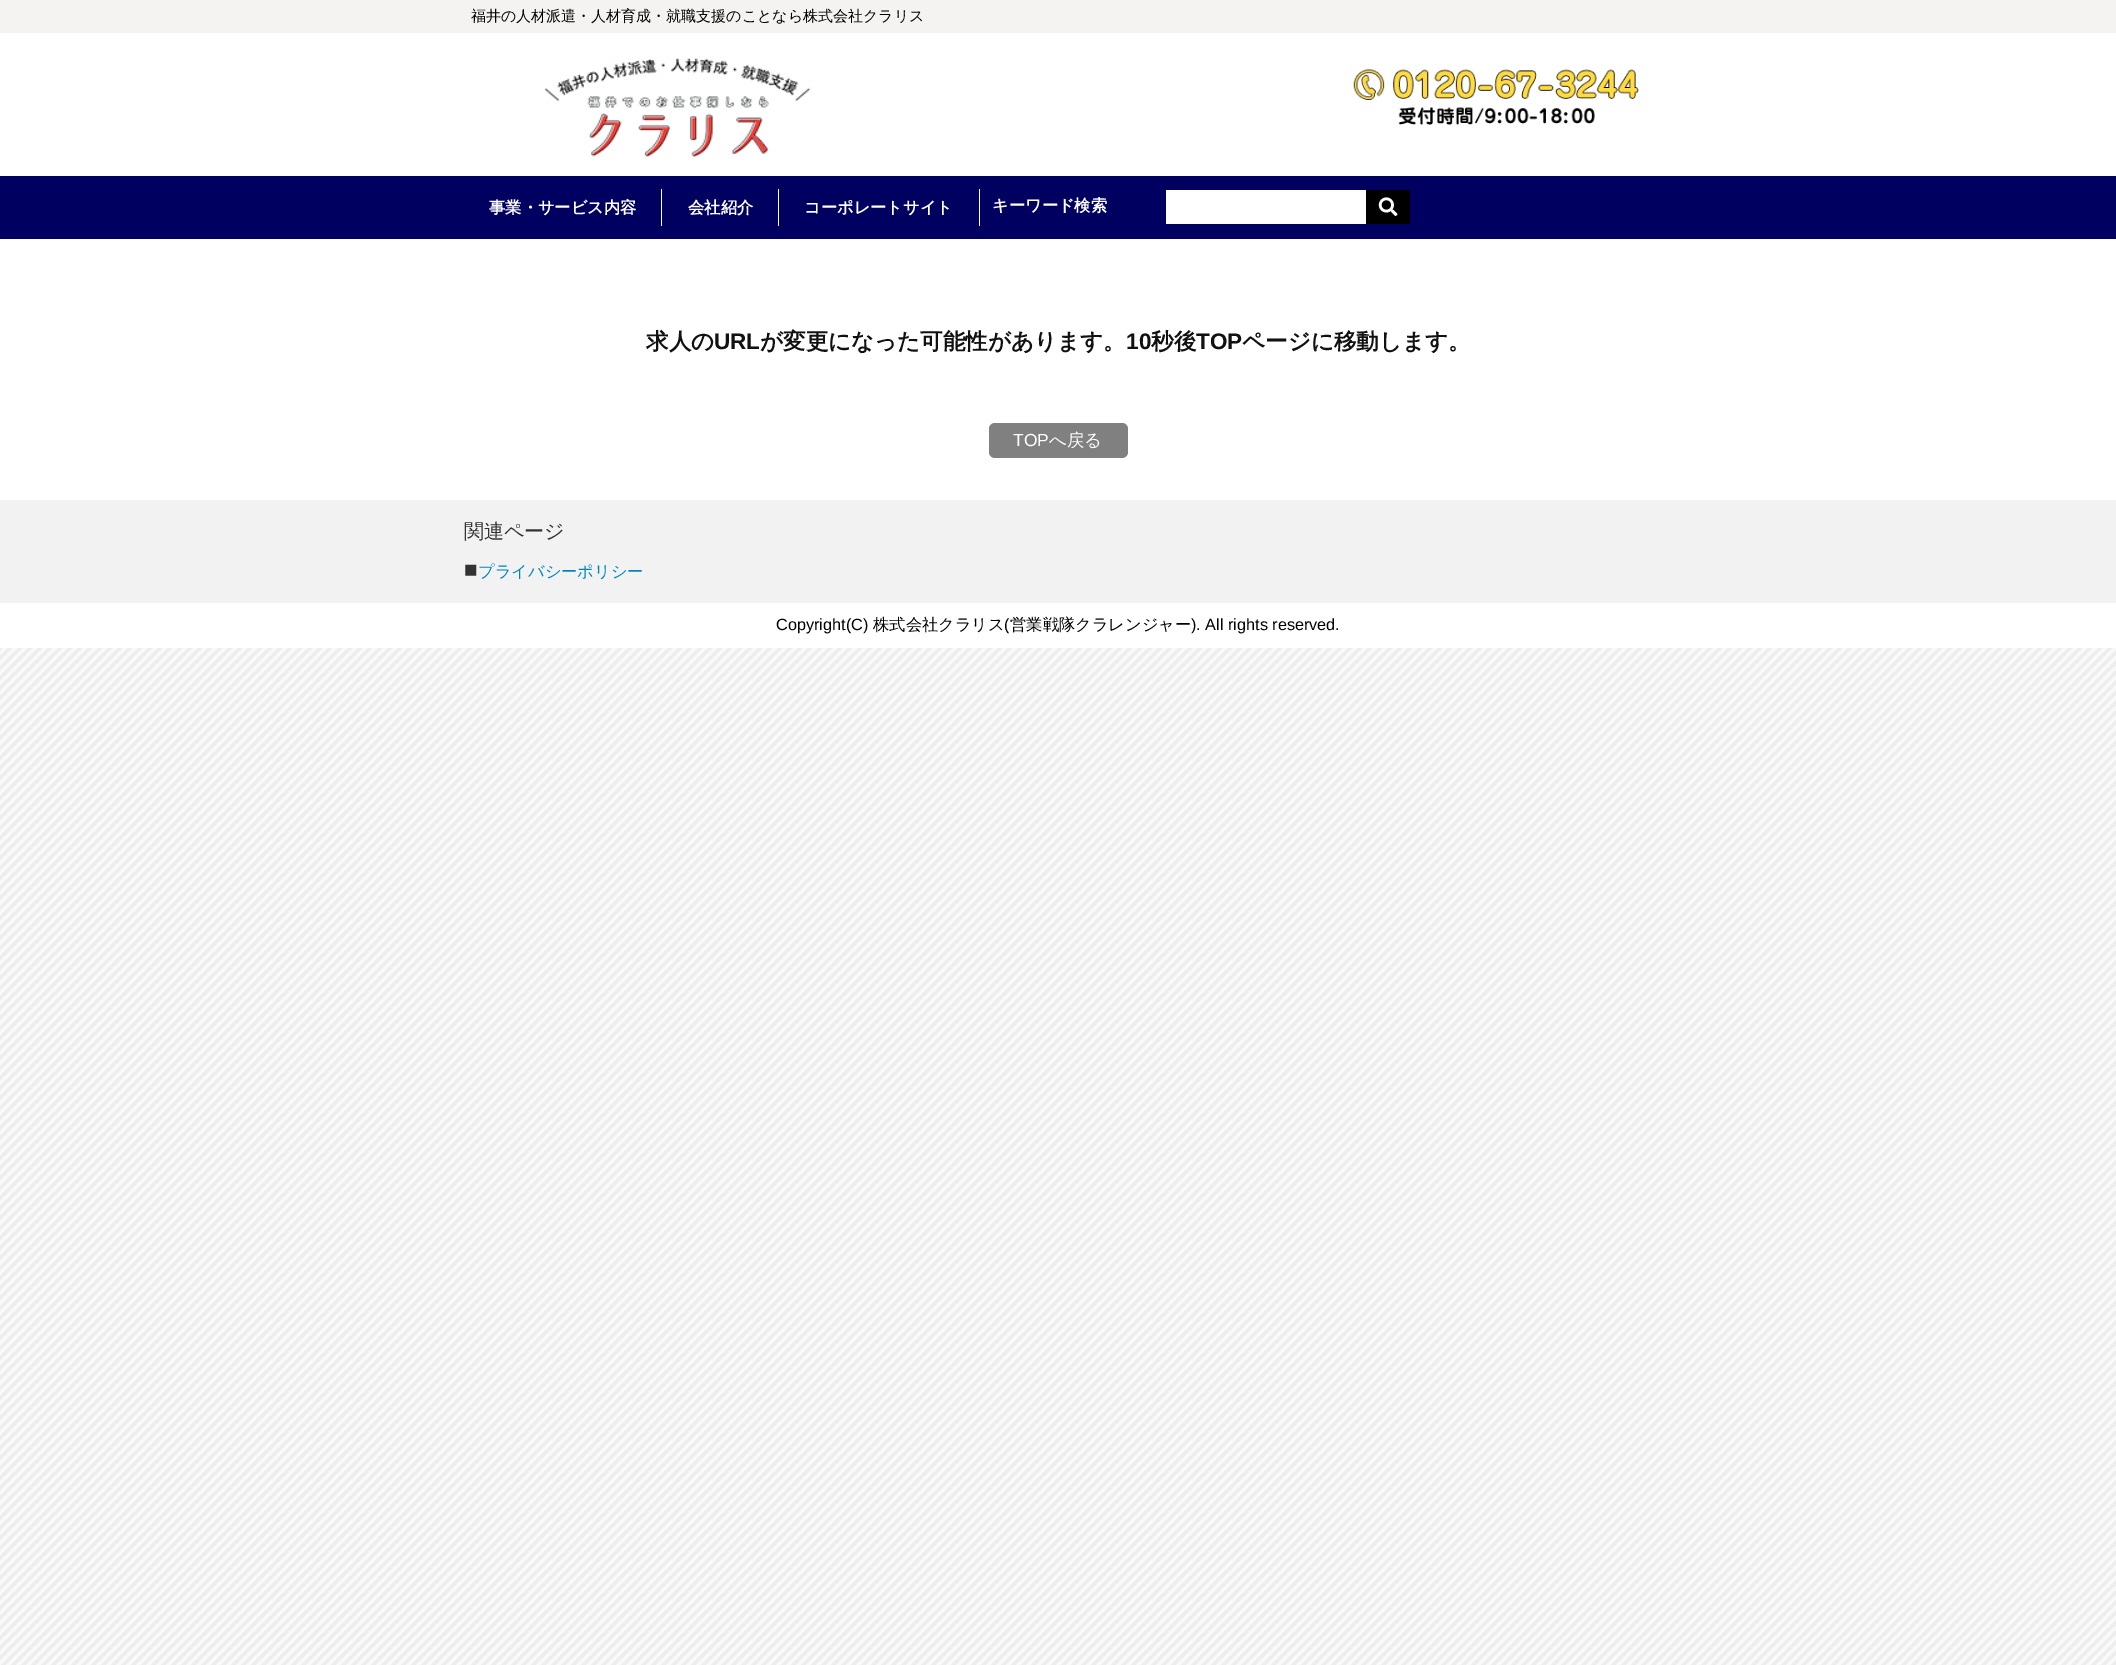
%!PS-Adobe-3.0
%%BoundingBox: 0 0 2116 1665
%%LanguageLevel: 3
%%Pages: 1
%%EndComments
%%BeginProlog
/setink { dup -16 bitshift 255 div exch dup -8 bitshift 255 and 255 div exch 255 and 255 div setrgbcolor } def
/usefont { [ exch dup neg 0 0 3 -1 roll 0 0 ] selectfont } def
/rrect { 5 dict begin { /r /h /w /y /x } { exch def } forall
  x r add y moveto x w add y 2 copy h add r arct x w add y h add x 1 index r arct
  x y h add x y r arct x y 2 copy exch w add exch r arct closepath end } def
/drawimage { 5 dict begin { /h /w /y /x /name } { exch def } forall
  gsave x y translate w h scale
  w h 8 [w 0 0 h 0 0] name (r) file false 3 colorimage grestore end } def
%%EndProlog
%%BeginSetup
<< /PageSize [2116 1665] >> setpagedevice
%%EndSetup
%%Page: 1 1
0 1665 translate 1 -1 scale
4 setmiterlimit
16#FFFFFF setink
0 0 2116 1665 rectfill
(img1.raw) 0 648 2116 1017 drawimage
16#F4F3F1 setink
0 0 2116 33 rectfill
/WenQuanYiZenHei-Medium 15 usefont
16#000000 setink
471 21 moveto (福井の人材派遣・人材育成・就職支援のことなら株式会社クラリス) show
(img2.raw) 544 58 267 99 drawimage
(img3.raw) 1353 69 286 56 drawimage
16#000060 setink
0 176 2116 63 rectfill
16#FFFFFF setink
661 189 1 37 rectfill
/WenQuanYiZenHei-Bold 16.25 usefont
489 213 moveto (事業・サービス内容) show
778 189 1 37 rectfill
688 213 moveto (会社紹介) show
979 189 1 37 rectfill
804 213 moveto (コーポレートサイト) show
992 211 moveto (キーワード検索) show
1166 190 200 34 rectfill
16#000000 setink
1366 190 44 34 rectfill
(img4.raw) 1378 197 20 19 drawimage
/WenQuanYiZenHei-Bold 22.5 usefont
16#111111 setink
646 349 moveto (求人の) show
/LiberationSans-Bold 22.5 usefont
714 349 moveto (URL) show
/WenQuanYiZenHei-Bold 22.5 usefont
760 349 moveto (が変更になった可能性があります。) show
/LiberationSans-Bold 22.5 usefont
1126 349 moveto (10) show
/WenQuanYiZenHei-Bold 22.5 usefont
1151 349 moveto (秒後) show
/LiberationSans-Bold 22.5 usefont
1196 349 moveto (TOP) show
/WenQuanYiZenHei-Bold 22.5 usefont
1242 349 moveto (ページに移動します。) show
16#808080 setink
989 423 139 35 6 rrect fill
/LiberationSans-Regular 17.5 usefont
16#FFFFFF setink
1013 446 moveto (TOP) show
/WenQuanYiZenHei-Medium 17.5 usefont
1049 446 moveto (へ戻る) show
16#F2F2F2 setink
0 500 2116 103 rectfill
/WenQuanYiZenHei-Medium 20 usefont
16#333333 setink
464 538 moveto (関連ページ) show
/LiberationSans-Regular 22.5 usefont
464 577 moveto (■) show
/WenQuanYiZenHei-Medium 16.25 usefont
16#0085BB setink
478 577 moveto (プライバシーポリシー) show
/LiberationSans-Regular 16.25 usefont
16#000000 setink
776 630 moveto (Copyright\(C\)) show
/WenQuanYiZenHei-Medium 16.25 usefont
873 630 moveto (株式会社クラリス) show
/LiberationSans-Regular 16.25 usefont
1004 630 moveto (\() show
/WenQuanYiZenHei-Medium 16.25 usefont
1010 630 moveto (営業戦隊クラレンジャー) show
/LiberationSans-Regular 16.25 usefont
1191 630 moveto (\). All rights reserved.) show
showpage
%%EOF
